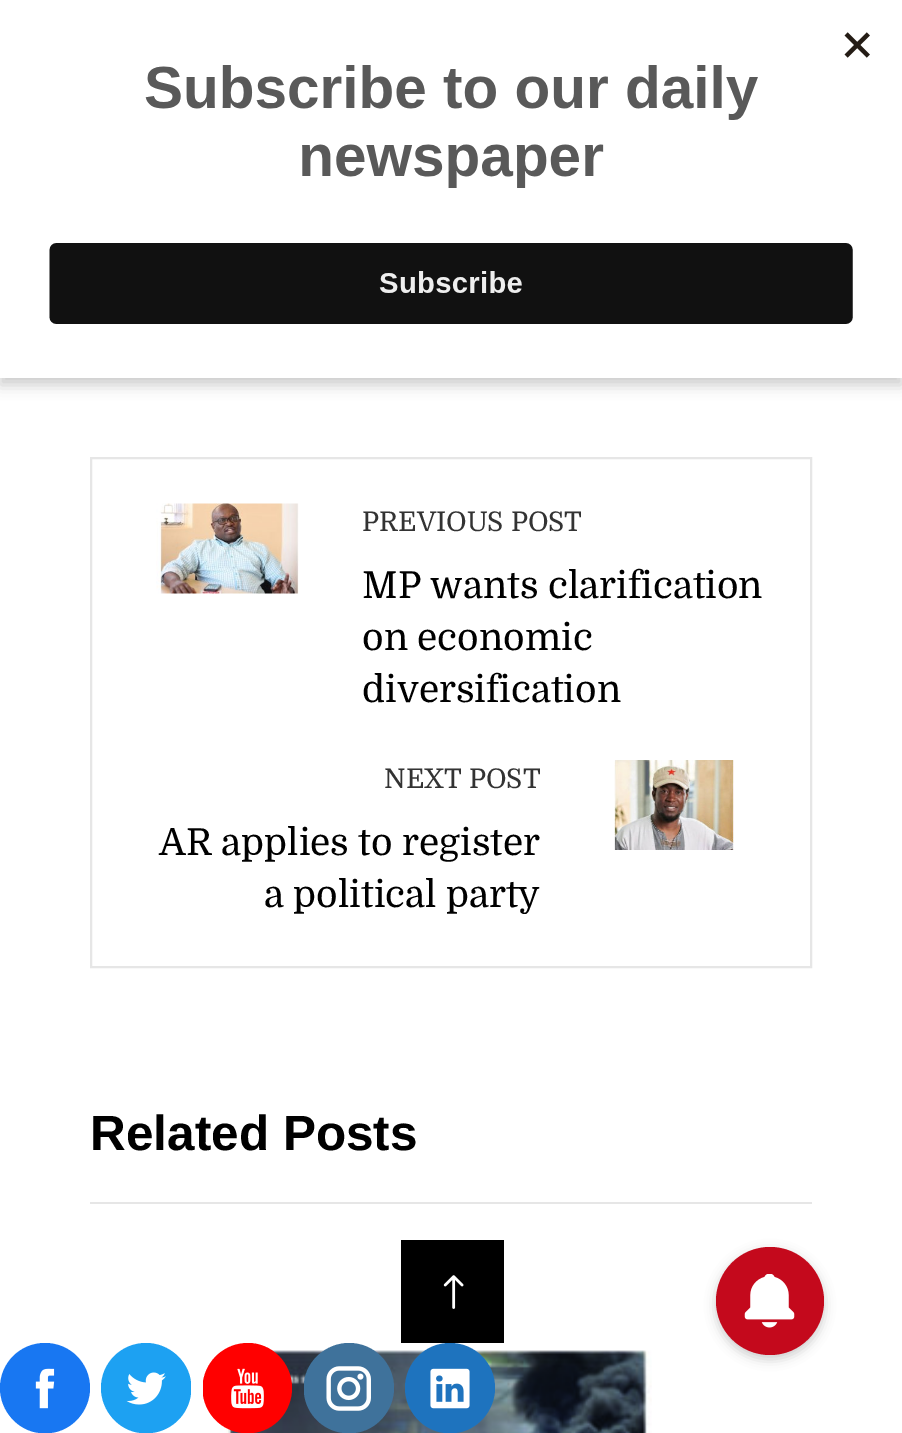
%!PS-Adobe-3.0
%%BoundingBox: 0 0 902 1433
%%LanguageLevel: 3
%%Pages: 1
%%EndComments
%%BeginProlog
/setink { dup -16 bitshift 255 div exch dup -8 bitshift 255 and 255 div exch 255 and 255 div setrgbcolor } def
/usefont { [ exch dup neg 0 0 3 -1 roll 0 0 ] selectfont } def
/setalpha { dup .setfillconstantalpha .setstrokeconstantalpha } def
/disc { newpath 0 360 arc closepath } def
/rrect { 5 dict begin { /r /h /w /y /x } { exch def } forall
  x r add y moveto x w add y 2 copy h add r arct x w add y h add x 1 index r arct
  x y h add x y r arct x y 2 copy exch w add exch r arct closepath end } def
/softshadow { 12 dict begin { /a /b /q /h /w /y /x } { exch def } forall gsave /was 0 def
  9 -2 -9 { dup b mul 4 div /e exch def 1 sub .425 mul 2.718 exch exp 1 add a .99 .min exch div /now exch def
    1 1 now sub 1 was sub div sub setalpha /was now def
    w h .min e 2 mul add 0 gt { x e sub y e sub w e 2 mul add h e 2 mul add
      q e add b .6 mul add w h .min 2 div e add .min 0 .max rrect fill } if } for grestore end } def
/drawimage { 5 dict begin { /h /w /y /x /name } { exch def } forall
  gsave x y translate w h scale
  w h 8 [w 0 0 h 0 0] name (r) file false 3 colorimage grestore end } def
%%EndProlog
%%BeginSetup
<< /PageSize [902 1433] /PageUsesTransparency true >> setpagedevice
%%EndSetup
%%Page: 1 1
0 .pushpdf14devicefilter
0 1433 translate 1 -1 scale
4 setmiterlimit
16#FFFFFF setink
0 0 902 1433 rectfill
16#000000 setink
0 7 902 378 0 7 0.2 softshadow
16#FFFFFF setink
0 0 902 378 rectfill
(img1.raw) 49 32 821 292 drawimage
16#E6E6E6 setink
2 setlinewidth
91 458 720 509 rectstroke
(img2.raw) 156 503 143 91 drawimage
/Domine-Regular 27 usefont
16#333333 setink
362 531 moveto (PREVIOUS POST) show
/Domine-Regular 37.1 usefont
16#000000 setink
[
    [(MP wants clarification) 362 598]
    [(on economic) 362 650]
    [(diversification) 362 702]
] { aload pop moveto show } forall
/Domine-Regular 27 usefont
16#333333 setink
384 788 moveto (NEXT POST) show
(img3.raw) 614 760 120 90 drawimage
/Domine-Regular 37.1 usefont
16#000000 setink
159 855 moveto (AR applies to register) show
264 907 moveto (a political party) show
16#E6E6E6 setink
90 1202 722 2 rectfill
/LiberationSans-Bold 49.5 usefont
16#000000 setink
90 1150 moveto (Related Posts) show
(img4.raw) 219 1350 433 83 drawimage
401 1240 103 103 rectfill
(img5.raw) 443 1275 21 34 drawimage
716 1251 108 108 54 5.5 0.2 softshadow
16#C4091C setink
770 1301 54 disc fill
(img6.raw) 744 1274 51 54 drawimage
16#1877F2 setink
45 1343 moveto 70 1343 90 1363 90 1388 curveto 90 1411 72 1431 50 1433 curveto 40 1433 lineto 18 1431 0 1411 0 1388 curveto 0 1363 20 1343 45 1343 curveto closepath fill
(img7.raw) 35 1368 20 41 drawimage
16#1DA1F2 setink
146 1343 moveto 169 1343 189 1361 191 1383 curveto 191 1393 lineto 189 1414 172 1431 151 1433 curveto 141 1433 lineto 119 1431 101 1411 101 1388 curveto 101 1363 121 1343 146 1343 curveto closepath fill
(img8.raw) 126 1372 40 33 drawimage
16#FF0000 setink
248 1343 moveto 272 1343 292 1363 292 1388 curveto 292 1411 275 1431 252 1433 curveto 243 1433 lineto 222 1431 206 1415 203 1395 curveto 203 1382 lineto 206 1360 225 1343 248 1343 curveto closepath fill
(img9.raw) 231 1368 33 41 drawimage
16#3F729B setink
349 1343 moveto 374 1343 394 1363 394 1388 curveto 394 1411 376 1431 354 1433 curveto 344 1433 lineto 323 1431 306 1414 304 1393 curveto 304 1383 lineto 306 1361 326 1343 349 1343 curveto closepath fill
(img10.raw) 326 1366 45 45 drawimage
16#1E73BE setink
450 1343 moveto 475 1343 495 1363 495 1388 curveto 495 1411 477 1431 455 1433 curveto 445 1433 lineto 423 1431 405 1411 405 1388 curveto 405 1363 425 1343 450 1343 curveto closepath fill
(img11.raw) 430 1368 40 41 drawimage
.poppdf14devicefilter showpage
%%EOF
